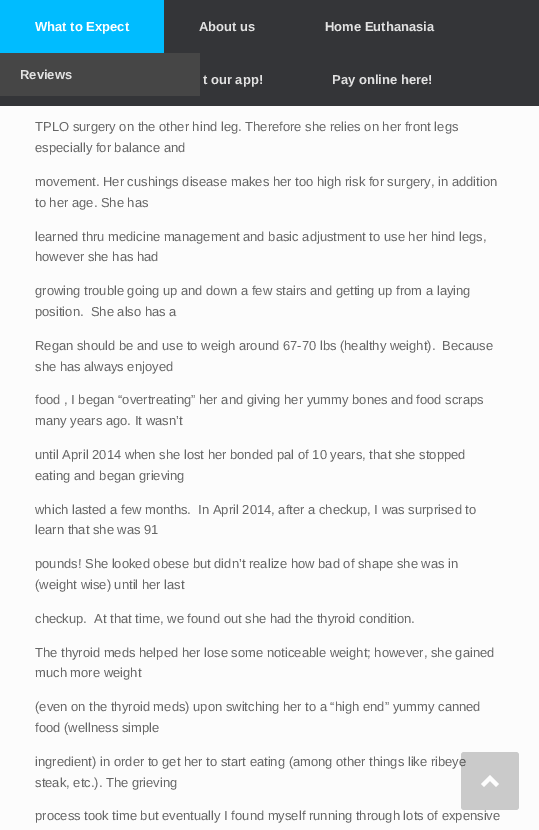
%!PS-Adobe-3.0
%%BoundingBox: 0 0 539 830
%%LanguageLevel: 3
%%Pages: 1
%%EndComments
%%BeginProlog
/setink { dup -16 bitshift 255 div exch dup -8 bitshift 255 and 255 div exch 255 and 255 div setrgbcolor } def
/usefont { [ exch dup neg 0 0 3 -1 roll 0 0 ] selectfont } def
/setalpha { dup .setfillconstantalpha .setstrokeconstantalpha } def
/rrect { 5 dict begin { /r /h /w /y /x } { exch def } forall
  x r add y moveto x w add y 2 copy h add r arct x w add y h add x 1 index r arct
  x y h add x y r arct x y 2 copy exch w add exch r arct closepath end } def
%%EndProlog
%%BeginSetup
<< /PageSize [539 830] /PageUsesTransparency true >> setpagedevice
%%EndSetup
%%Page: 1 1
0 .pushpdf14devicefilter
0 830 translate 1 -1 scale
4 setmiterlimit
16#FCFCFC setink
0 0 539 830 rectfill
16#343538 setink
0 0 539 106 rectfill
16#00BCFF setink
0 0 164 53 rectfill
/LiberationSans-Bold 13 usefont
16#FFFFFF setink
35 31 moveto (What to Expect) show
16#464646 setink
0 53 200 43 rectfill
16#E2E2E2 setink
[
    [(Reviews) 20 79]
    [(About us) 199 31]
    [(Home Euthanasia) 325 31]
    [(t our app!) 203 84]
    [(Pay online here!) 332 84]
] { aload pop moveto show } forall
/LiberationSans-Regular 13 usefont
16#666666 setink
[
    [(TPLO surgery on the other hind leg. Therefore she relies on her front legs) 35 131]
    [(especially for balance and) 35 152]
    [(movement. Her cushings disease makes her too high risk for surgery, in addition) 35 186]
    [(to her age. She has) 35 207]
    [(learned thru medicine management and basic adjustment to use her hind legs,) 35 241]
    [(however she has had) 35 261]
    [(growing trouble going up and down a few stairs and getting up from a laying) 35 295]
    [(position.  She also has a) 35 316]
    [(Regan should be and use to weigh around 67-70 lbs \(healthy weight\).  Because) 35 350]
    [(she has always enjoyed) 35 371]
    [(food , I began “overtreating” her and giving her yummy bones and food scraps) 35 404]
    [(many years ago. It wasn’t) 35 425]
    [(until April 2014 when she lost her bonded pal of 10 years, that she stopped) 35 459]
    [(eating and began grieving) 35 480]
    [(which lasted a few months.  In April 2014, after a checkup, I was surprised to) 35 514]
    [(learn that she was 91) 35 534]
    [(pounds! She looked obese but didn’t realize how bad of shape she was in) 35 568]
    [(\(weight wise\) until her last) 35 589]
    [(checkup.  At that time, we found out she had the thyroid condition.) 35 623]
    [(The thyroid meds helped her lose some noticeable weight; however, she gained) 35 657]
    [(much more weight) 35 677]
    [(\(even on the thyroid meds\) upon switching her to a “high end” yummy canned) 35 711]
    [(food \(wellness simple) 35 732]
    [(ingredient\) in order to get her to start eating \(among other things like ribeye) 35 766]
    [(steak, etc.\). The grieving) 35 787]
    [(process took time but eventually I found myself running through lots of expensive) 35 820]
] { aload pop moveto show } forall
0.2 setalpha
16#000000 setink
461 752 58 58 3 rrect fill
1 setalpha
16#FDFDFD setink
499 784 moveto 490 775 lineto 481 784 lineto 484 787 lineto 490 781 lineto 496 787 lineto closepath fill
.poppdf14devicefilter showpage
%%EOF
